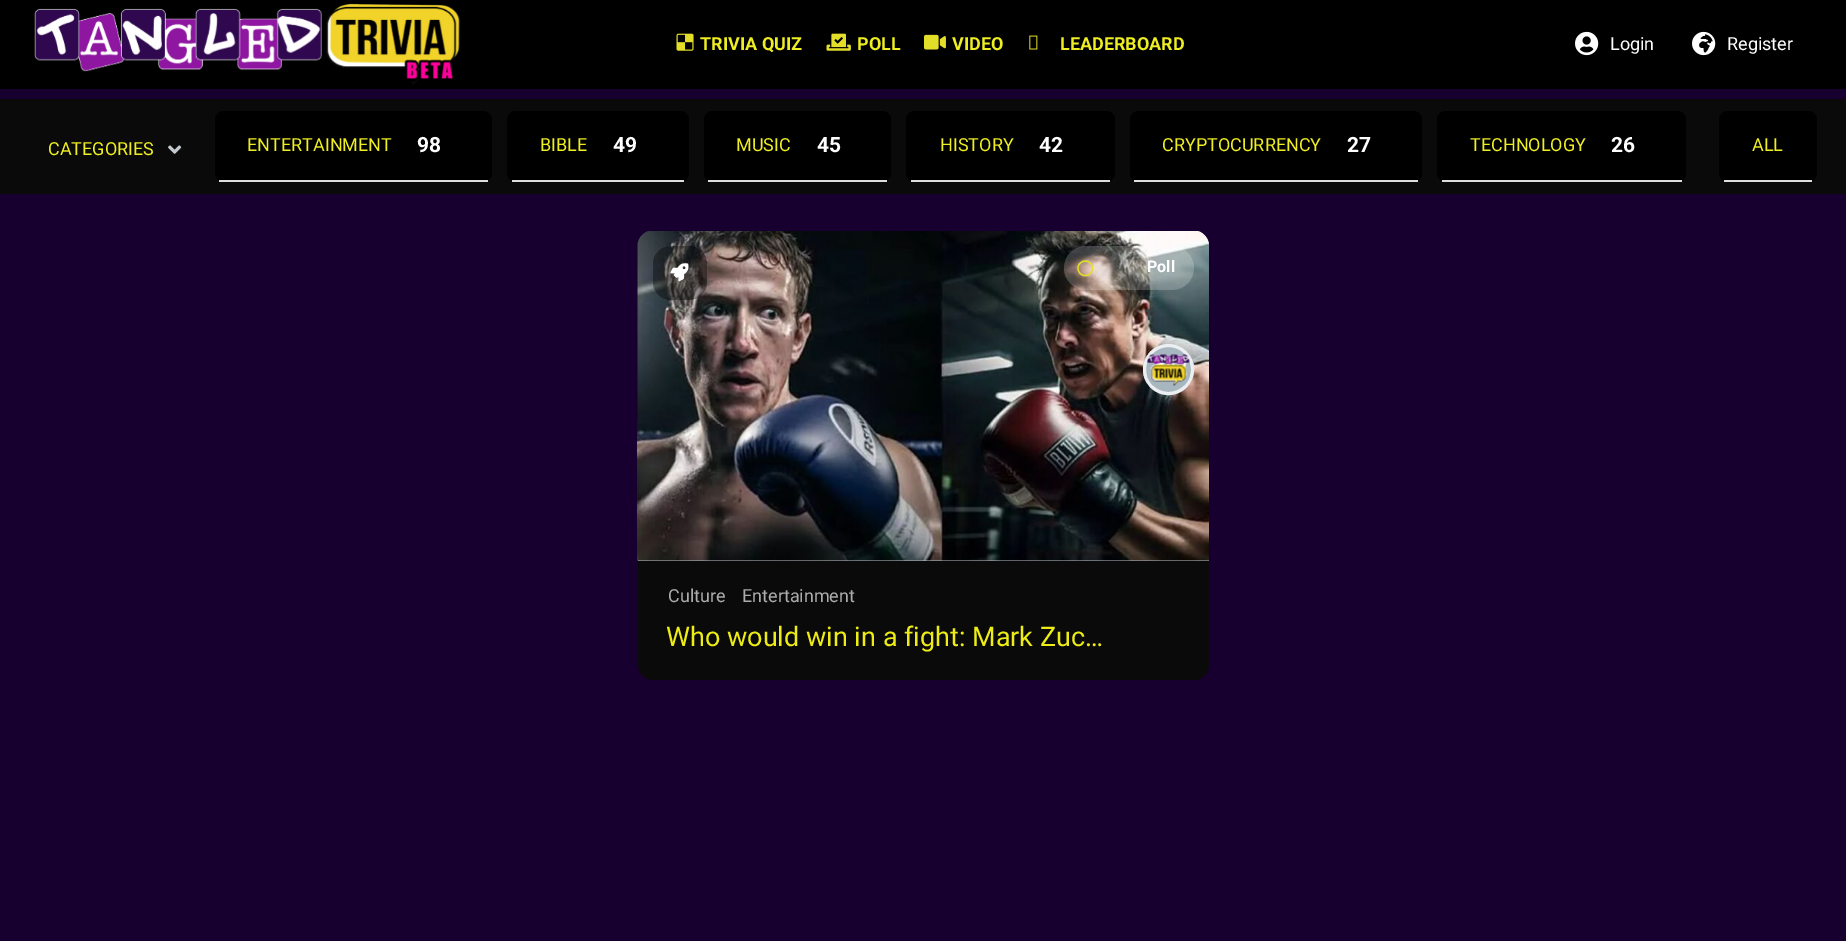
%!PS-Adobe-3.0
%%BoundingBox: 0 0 1846 941
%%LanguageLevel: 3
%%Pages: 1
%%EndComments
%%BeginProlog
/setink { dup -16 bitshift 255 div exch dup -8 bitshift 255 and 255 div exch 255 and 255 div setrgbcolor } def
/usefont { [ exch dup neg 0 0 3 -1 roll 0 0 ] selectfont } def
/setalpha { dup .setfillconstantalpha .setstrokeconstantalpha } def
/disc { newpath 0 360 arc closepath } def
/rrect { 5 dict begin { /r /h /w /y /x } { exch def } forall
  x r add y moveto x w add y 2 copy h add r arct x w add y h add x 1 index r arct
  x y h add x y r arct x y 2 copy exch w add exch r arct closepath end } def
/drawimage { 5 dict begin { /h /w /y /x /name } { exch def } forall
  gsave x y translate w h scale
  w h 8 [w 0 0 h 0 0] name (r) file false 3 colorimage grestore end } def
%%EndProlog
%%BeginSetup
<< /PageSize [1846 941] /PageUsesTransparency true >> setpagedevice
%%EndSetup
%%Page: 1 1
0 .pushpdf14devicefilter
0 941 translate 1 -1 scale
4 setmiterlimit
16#170030 setink
0 0 1846 941 rectfill
16#000000 setink
0 0 1846 89 rectfill
(img1.raw) 34 3 426 81 drawimage
(img2.raw) 676 33 18 18 drawimage
/Roboto-Bold 18 usefont
16#EEEE22 setink
700 50 moveto (TRIVIA QUIZ) show
(img3.raw) 826 33 25 18 drawimage
857 50 moveto (POLL) show
(img4.raw) 924 34 22 16 drawimage
952 50 moveto (VIDEO) show
(img5.raw) 1029 35 9 15 drawimage
1060 50 moveto (LEADERBOARD) show
(img6.raw) 1575 31 24 25 drawimage
/Roboto-Regular 18 usefont
16#FFFFFF setink
1610 50 moveto (Login) show
(img7.raw) 1692 31 24 25 drawimage
1727 50 moveto (Register) show
16#0A0A0A setink
0 99 1846 95 rectfill
16#EEEE22 setink
48 155 moveto (CATEGORIES) show
(img8.raw) 168 145 14 9 drawimage
16#000000 setink
215 111 277 71 9 rrect fill
16#DEDEDE setink
219 180 269 2 rectfill
16#EEEE22 setink
247 151 moveto (ENTERTAINMENT) show
/Roboto-Bold 21 usefont
16#FFFFFF setink
417 152 moveto (98) show
16#000000 setink
507 111 182 71 9 rrect fill
16#DEDEDE setink
512 180 172 2 rectfill
/Roboto-Regular 18 usefont
16#EEEE22 setink
540 151 moveto (BIBLE) show
/Roboto-Bold 21 usefont
16#FFFFFF setink
613 152 moveto (49) show
16#000000 setink
704 111 187 71 9 rrect fill
16#DEDEDE setink
708 180 179 2 rectfill
/Roboto-Regular 18 usefont
16#EEEE22 setink
736 151 moveto (MUSIC) show
/Roboto-Bold 21 usefont
16#FFFFFF setink
817 152 moveto (45) show
16#000000 setink
906 111 209 71 9 rrect fill
16#DEDEDE setink
911 180 199 2 rectfill
/Roboto-Regular 18 usefont
16#EEEE22 setink
940 151 moveto (HISTORY) show
/Roboto-Bold 21 usefont
16#FFFFFF setink
1039 152 moveto (42) show
16#000000 setink
1130 111 292 71 9 rrect fill
16#DEDEDE setink
1134 180 284 2 rectfill
/Roboto-Regular 18 usefont
16#EEEE22 setink
1162 151 moveto (CRYPTOCURRENCY) show
/Roboto-Bold 21 usefont
16#FFFFFF setink
1347 152 moveto (27) show
16#000000 setink
1437 111 249 71 9 rrect fill
16#DEDEDE setink
1442 180 240 2 rectfill
/Roboto-Regular 18 usefont
16#EEEE22 setink
1470 151 moveto (TECHNOLOGY) show
/Roboto-Bold 21 usefont
16#FFFFFF setink
1611 152 moveto (26) show
16#000000 setink
1719 111 98 71 9 rrect fill
16#DEDEDE setink
1724 180 88 2 rectfill
/Roboto-Regular 18 usefont
16#EEEE22 setink
1752 151 moveto (ALL) show
16#0A0A0A setink
638 231 571 449 15 rrect fill
16#C2C6CB setink
653 231 moveto 1194 231 lineto 1202.5 231 1209 237.5 1209 246 curveto 1209 561 lineto 638 561 lineto 638 246 lineto 638 237.5 644.5 231 653 231 curveto closepath fill
(img9.raw) 637 231 572 330 drawimage
0.38 setalpha
16#000000 setink
653 246 54 54 18 rrect fill
1 setalpha
(img10.raw) 670 263 19 19 drawimage
0.2 setalpha
16#FFFFFF setink
1064 246 130 44 22 rrect fill
1 setalpha
(img11.raw) 1077 260 17 17 drawimage
/Roboto-Bold 16 usefont
1147 272 moveto (Poll) show
16#384549 setink
1144 320 moveto (1) show
16#A8B6C0 setink
1168.5 369.5 25.5 disc fill
(img12.raw) 1147 354 43 32 drawimage
0.78 setalpha
16#FFFFFF setink
3 setlinewidth
1168.5 369.5 24 disc stroke
1 setalpha
(img13.raw) 1147 354 43 32 drawimage
/Roboto-Regular 18 usefont
16#ACACAC setink
668 602 moveto (Culture) show
742 602 moveto (Entertainment) show
/Roboto-Regular 27 usefont
16#EDED15 setink
666 646 moveto (Who would win in a fight: Mark Zuc…) show
.poppdf14devicefilter showpage
%%EOF
